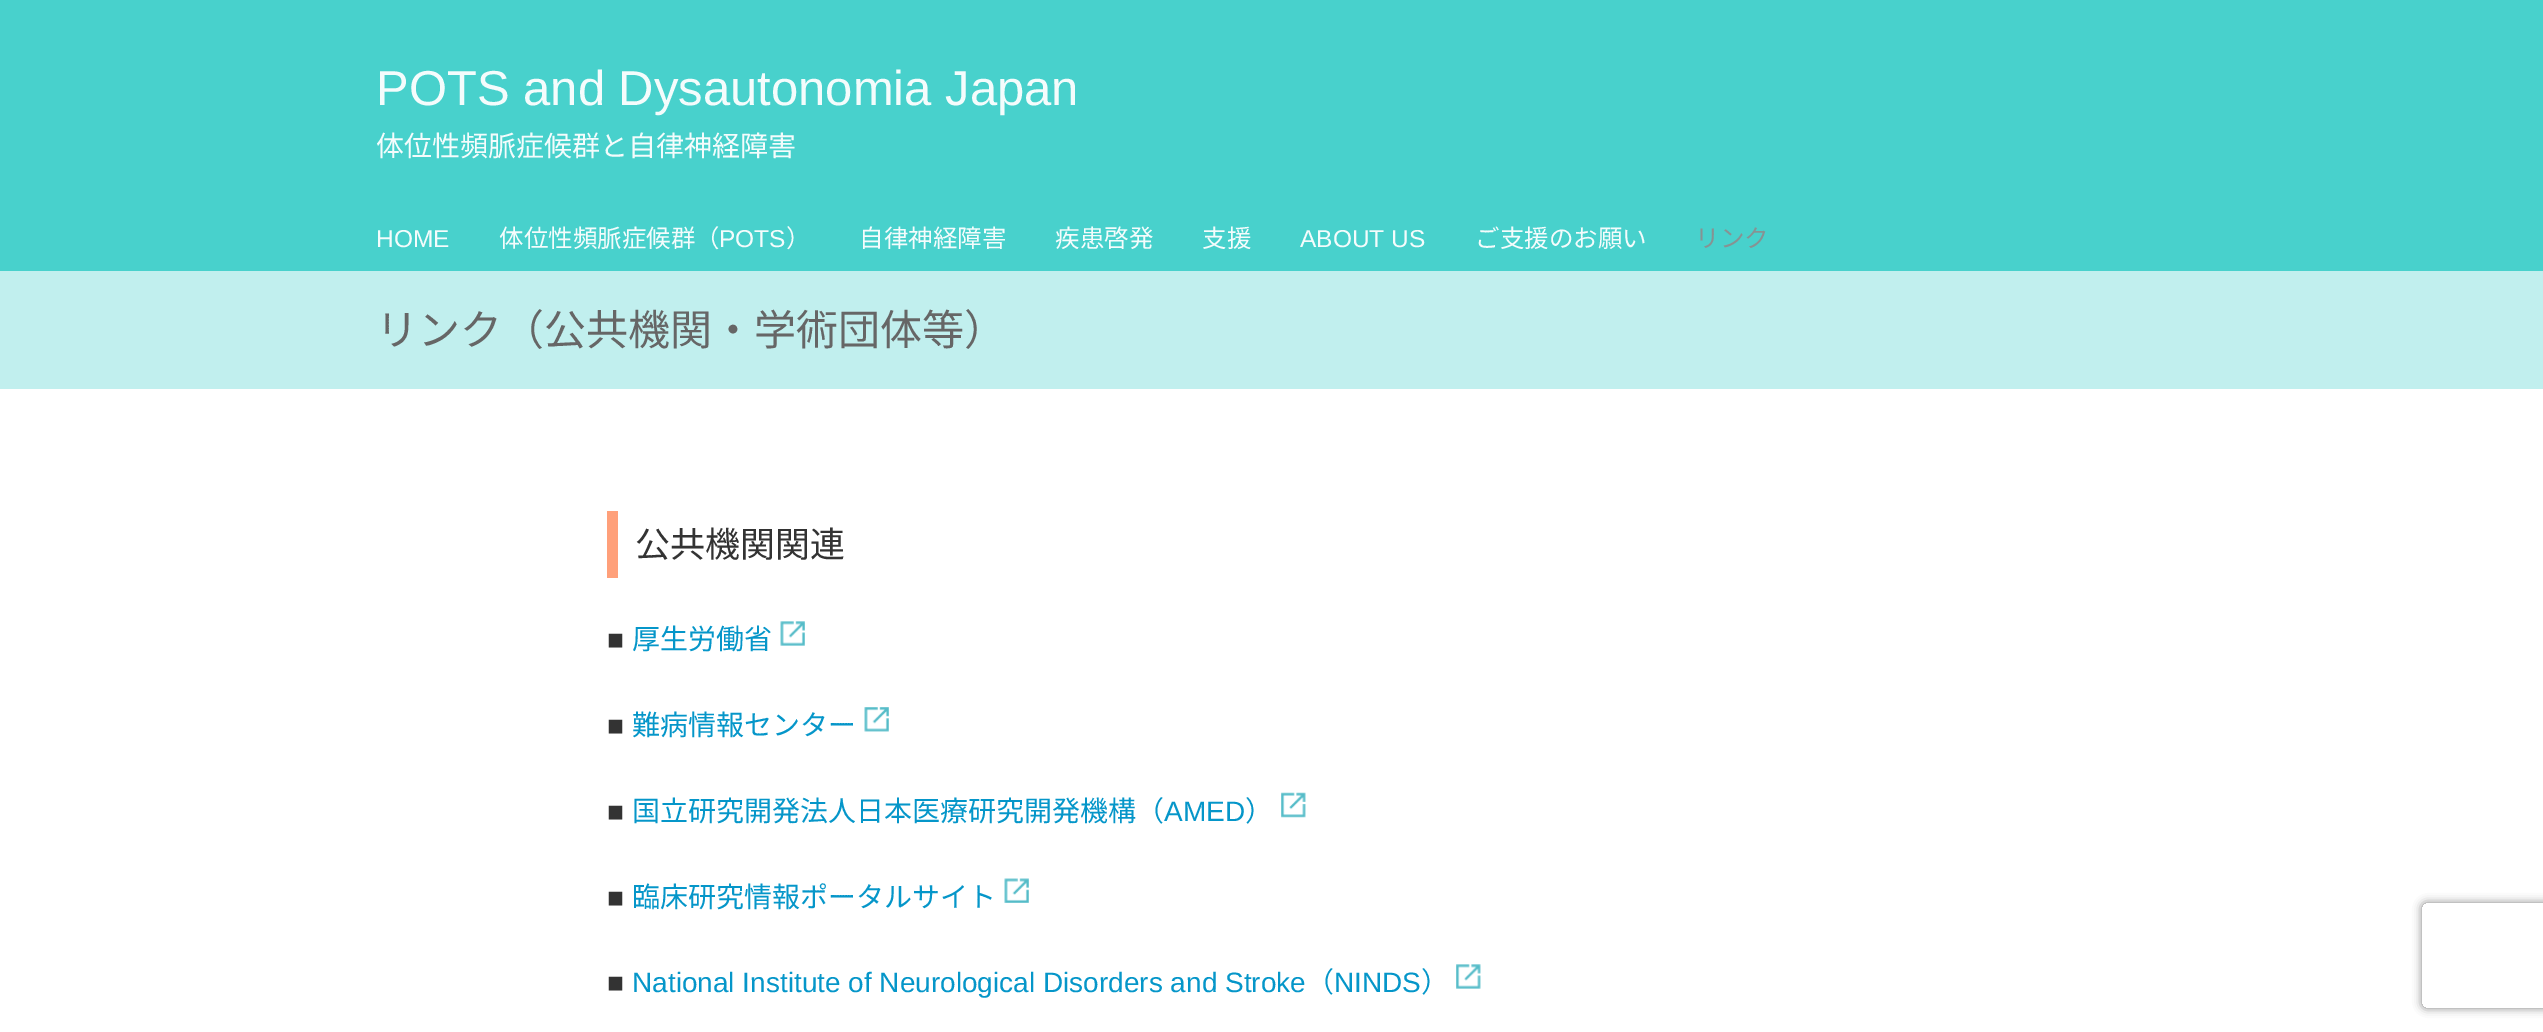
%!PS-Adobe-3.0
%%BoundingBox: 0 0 2543 1032
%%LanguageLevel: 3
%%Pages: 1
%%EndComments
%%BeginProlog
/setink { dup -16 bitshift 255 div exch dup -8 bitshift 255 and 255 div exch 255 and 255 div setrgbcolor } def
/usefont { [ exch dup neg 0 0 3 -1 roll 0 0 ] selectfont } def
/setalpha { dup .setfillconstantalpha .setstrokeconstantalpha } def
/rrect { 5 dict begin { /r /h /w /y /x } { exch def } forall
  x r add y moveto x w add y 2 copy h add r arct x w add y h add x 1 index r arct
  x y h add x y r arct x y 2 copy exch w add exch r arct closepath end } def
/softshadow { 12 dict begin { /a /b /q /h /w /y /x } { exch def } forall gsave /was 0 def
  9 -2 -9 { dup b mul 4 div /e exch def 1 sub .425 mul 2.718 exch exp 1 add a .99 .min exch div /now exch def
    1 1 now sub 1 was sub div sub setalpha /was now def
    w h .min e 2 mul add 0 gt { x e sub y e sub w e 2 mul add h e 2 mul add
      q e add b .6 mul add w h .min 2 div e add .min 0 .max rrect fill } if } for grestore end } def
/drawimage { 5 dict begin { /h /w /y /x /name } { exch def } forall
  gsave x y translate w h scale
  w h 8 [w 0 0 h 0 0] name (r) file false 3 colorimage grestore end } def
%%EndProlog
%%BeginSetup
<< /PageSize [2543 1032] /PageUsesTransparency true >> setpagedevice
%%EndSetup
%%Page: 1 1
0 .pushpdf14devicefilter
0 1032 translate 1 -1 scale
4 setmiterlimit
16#FFFFFF setink
0 0 2543 1032 rectfill
16#48D1CC setink
0 0 2543 271 rectfill
/LiberationSans-Regular 49 usefont
16#F4FCFC setink
376 105 moveto (POTS and Dysautonomia Japan) show
/NotoSansJP-Regular 28 usefont
376 156 moveto (体位性頻脈症候群と自律神経障害) show
16#C1EFEE setink
0 271 2543 118 rectfill
/LiberationSans-Regular 24.5 usefont
16#F4FCFC setink
376 247 moveto (HOME) show
/NotoSansJP-Regular 24.5 usefont
499 247 moveto (体位性頻脈症候群（) show
/LiberationSans-Regular 24.5 usefont
719 247 moveto (POTS) show
/NotoSansJP-Regular 24.5 usefont
[
    [(）) 786 247]
    [(自律神経障害) 859 247]
    [(疾患啓発) 1055 247]
    [(支援) 1202 247]
] { aload pop moveto show } forall
/LiberationSans-Regular 24.5 usefont
1300 247 moveto (ABOUT US) show
/NotoSansJP-Regular 24.5 usefont
1475 247 moveto (ご支援のお願い) show
16#869393 setink
1695 247 moveto (リンク) show
/NotoSansJP-Regular 42 usefont
16#666666 setink
376 345 moveto (リンク（公共機関・学術団体等）) show
16#FFA07A setink
607 511 11 67 rectfill
/NotoSansJP-Regular 35 usefont
16#333333 setink
635 557 moveto (公共機関関連) show
/LiberationSans-Regular 28 usefont
607 649 moveto (■) show
/NotoSansJP-Regular 28 usefont
16#0596C9 setink
632 649 moveto (厚生労働省) show
(img1.raw) 780 621 25 25 drawimage
/LiberationSans-Regular 28 usefont
16#333333 setink
607 735 moveto (■) show
/NotoSansJP-Regular 28 usefont
16#0596C9 setink
632 735 moveto (難病情報センター) show
(img2.raw) 864 707 25 25 drawimage
/LiberationSans-Regular 28 usefont
16#333333 setink
607 821 moveto (■) show
/NotoSansJP-Regular 28 usefont
16#0596C9 setink
632 821 moveto (国立研究開発法人日本医療研究開発機構（) show
/LiberationSans-Regular 28 usefont
1164 821 moveto (AMED) show
/NotoSansJP-Regular 28 usefont
1245 821 moveto (）) show
(img3.raw) 1281 792 25 26 drawimage
/LiberationSans-Regular 28 usefont
16#333333 setink
607 907 moveto (■) show
/NotoSansJP-Regular 28 usefont
16#0596C9 setink
632 907 moveto (臨床研究情報ポータルサイト) show
(img4.raw) 1004 878 25 25 drawimage
/LiberationSans-Regular 28 usefont
16#333333 setink
607 992 moveto (■) show
16#0596C9 setink
632 992 moveto (National Institute of Neurological Disorders and Stroke) show
/NotoSansJP-Regular 28 usefont
1306 992 moveto (（) show
/LiberationSans-Regular 28 usefont
1334 992 moveto (NINDS) show
/NotoSansJP-Regular 28 usefont
1421 992 moveto (）) show
(img5.raw) 1456 964 25 25 drawimage
gsave
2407 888 moveto 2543 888 lineto 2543 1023 lineto 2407 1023 lineto closepath 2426 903 moveto 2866 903 lineto 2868 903 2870 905 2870 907 curveto 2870 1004 lineto 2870 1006 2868 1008 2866 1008 curveto 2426 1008 lineto 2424 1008 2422 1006 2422 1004 curveto 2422 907 lineto 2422 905 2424 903 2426 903 curveto closepath eoclip newpath
16#808080 setink
2422 903 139 105 4 4.5 1 softshadow
grestore
.poppdf14devicefilter showpage
%%EOF
